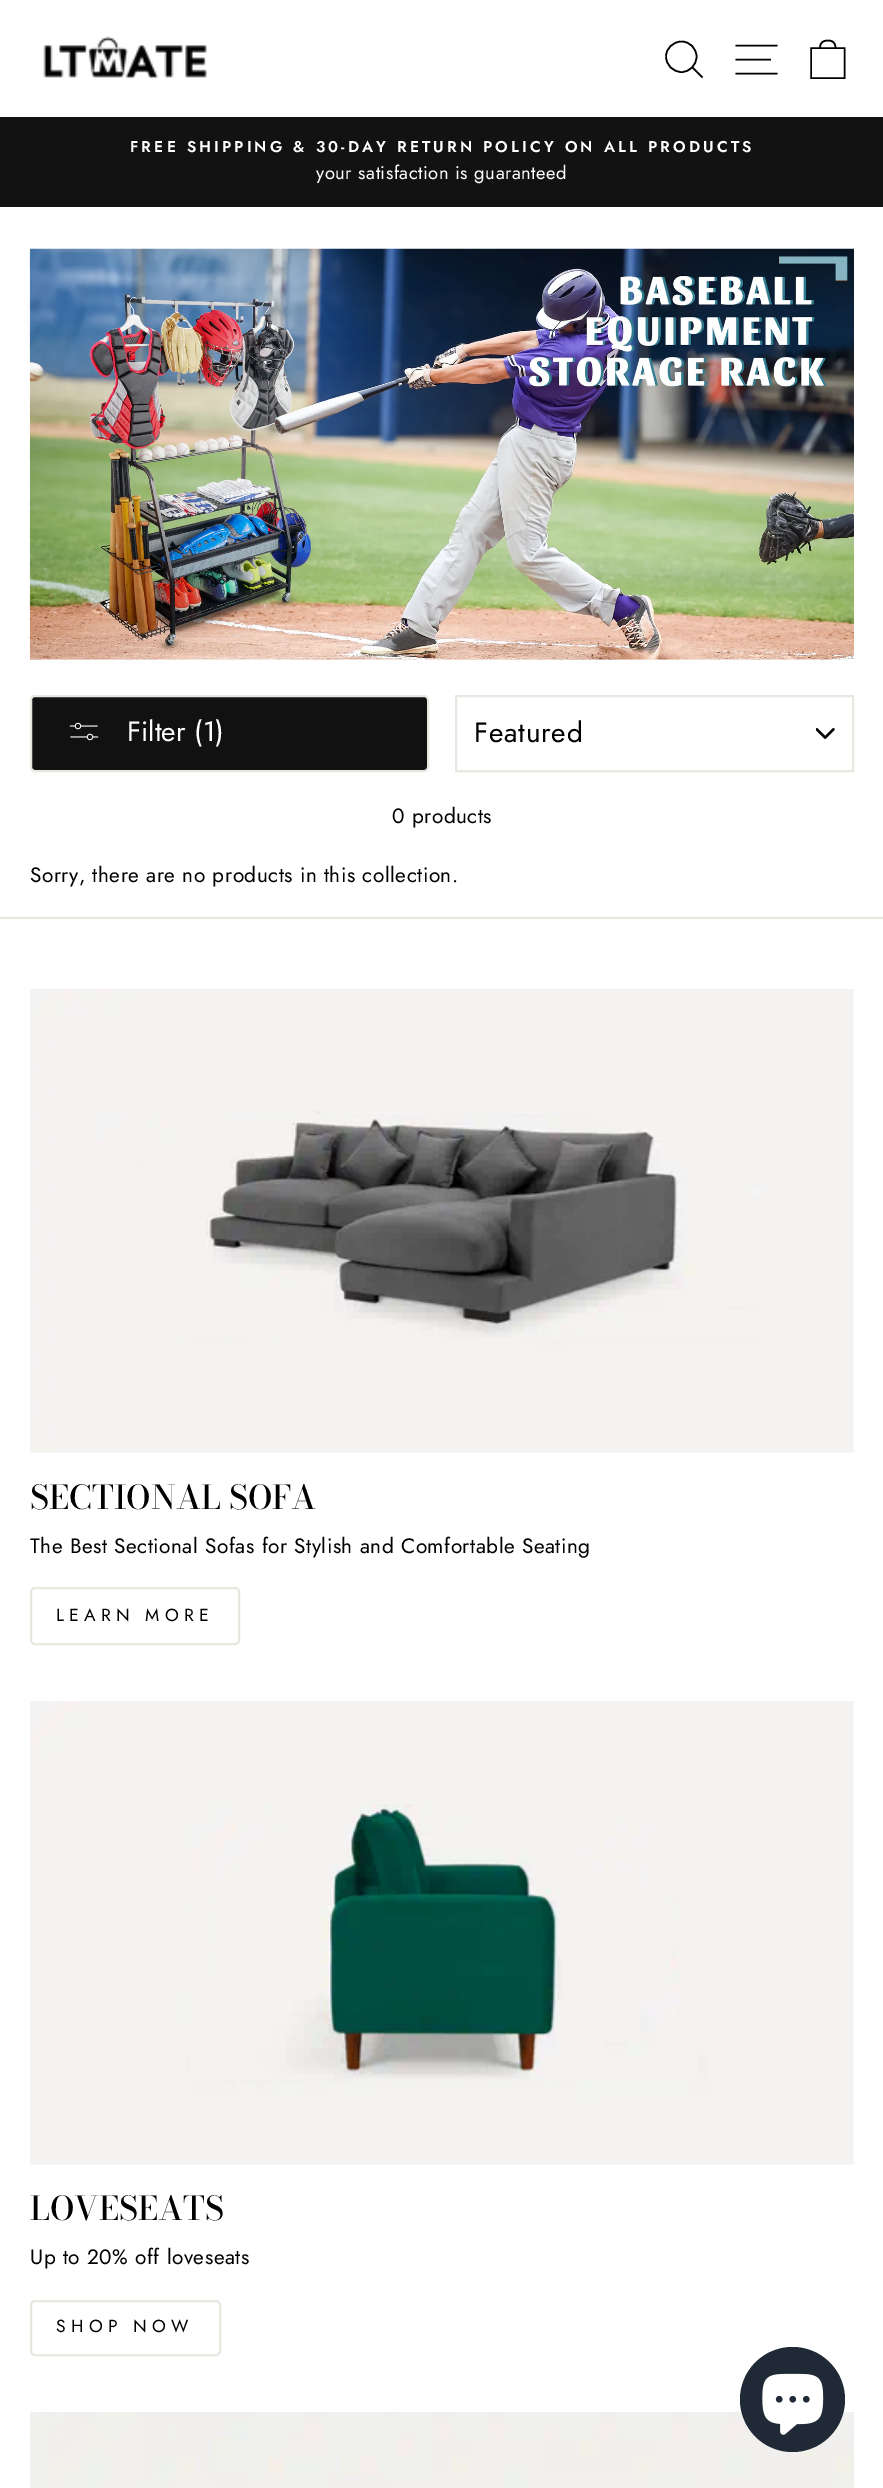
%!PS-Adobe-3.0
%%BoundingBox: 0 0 883 2488
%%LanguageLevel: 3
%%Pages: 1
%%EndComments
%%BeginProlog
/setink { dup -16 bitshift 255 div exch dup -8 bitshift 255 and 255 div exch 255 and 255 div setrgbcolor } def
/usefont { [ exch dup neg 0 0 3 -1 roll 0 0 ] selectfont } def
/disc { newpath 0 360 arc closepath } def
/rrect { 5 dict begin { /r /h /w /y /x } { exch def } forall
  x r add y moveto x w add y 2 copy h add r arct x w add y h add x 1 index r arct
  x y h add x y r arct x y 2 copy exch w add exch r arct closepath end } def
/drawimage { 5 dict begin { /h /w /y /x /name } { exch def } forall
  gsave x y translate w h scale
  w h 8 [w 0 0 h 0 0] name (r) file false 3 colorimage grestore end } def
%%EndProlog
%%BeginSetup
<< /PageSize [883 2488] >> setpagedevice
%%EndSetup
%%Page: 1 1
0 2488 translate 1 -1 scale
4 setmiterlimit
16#FFFFFF setink
0 0 883 2488 rectfill
(img1.raw) 43 36 164 43 drawimage
16#000000 setink
1.6 setlinewidth
696.5 56.5 moveto 696.5 65 690 72 681.5 72 curveto 673 72 666 65 666 56.5 curveto 666 48.5 673 41.5 681.5 41.5 curveto 690 41.5 696.5 48.5 696.5 56.5 curveto closepath 702.5 77.5 moveto 692.5 67.5 lineto stroke
735.5 45.5 moveto 777.5 45.5 lineto 735.5 59.5 moveto 771 59.5 lineto 735.5 73.5 moveto 777.5 73.5 lineto stroke
811 48 moveto 844.5 48 lineto 844.5 78 lineto 811 78 lineto closepath 820 48 moveto 820 42 823.5 40.5 828 40.5 curveto 832 40.5 835.5 42 835.5 48 curveto stroke
16#121212 setink
0 117 883 90 rectfill
/Jost-SemiBold 15.6 usefont
16#FFFFFF setink
130 152 moveto 3.12 0 (FREE SHIPPING & 30-DAY RETURN POLICY ON ALL PRODUCTS) ashow
/Jost-Regular 18.4 usefont
316 179 moveto 0.52 0 (your satisfaction is guaranteed) ashow
(img2.raw) 29 248 825 412 drawimage
16#111111 setink
31 696 397 75 4 rrect gsave fill grestore
16#E8E8E1 setink
2 setlinewidth
stroke
(img3.raw) 69 722 30 19 drawimage
/Jost-Regular 28 usefont
16#FFFFFF setink
127 741 moveto (Filter \(1\)) show
(img4.raw) 816 728 19 11 drawimage
16#E8E8E1 setink
456 696 397 75 rectstroke
16#000000 setink
474 742 moveto 0.75 0 (Featured) ashow
/Jost-Regular 20.8 usefont
392 823 moveto 0.52 0 (0 products) ashow
30 882 moveto 0.52 0 (Sorry, there are no products in this collection.) ashow
16#E8E8E1 setink
0 917 883 2 rectfill
(img5.raw) 30 989 824 464 drawimage
/BodoniModa-Medium 32.75 usefont
16#000000 setink
30 1509 moveto (SECTIONAL SOFA) show
/Jost-Regular 20.8 usefont
30 1553 moveto 0.52 0 (The Best Sectional Sofas for Stylish and Comfortable Seating) ashow
16#E8E8E1 setink
31 1588 208 56 4 rrect stroke
/Jost-Regular 17.5 usefont
16#000000 setink
56 1621 moveto 5.25 0 (LEARN MORE) ashow
(img6.raw) 30 1701 824 464 drawimage
/BodoniModa-Medium 32.75 usefont
30 2220 moveto (LOVESEATS) show
/Jost-Regular 20.8 usefont
30 2264 moveto 0.52 0 (Up to 20% off loveseats) ashow
16#E8E8E1 setink
31 2301 189 54 4 rrect stroke
/Jost-Regular 17.5 usefont
16#000000 setink
56 2332 moveto 5.25 0 (SHOP NOW) ashow
(img7.raw) 30 2412 824 76 drawimage
16#202A36 setink
792.5 2399.5 52.5 disc fill
(img8.raw) 762 2373 62 62 drawimage
showpage
%%EOF
